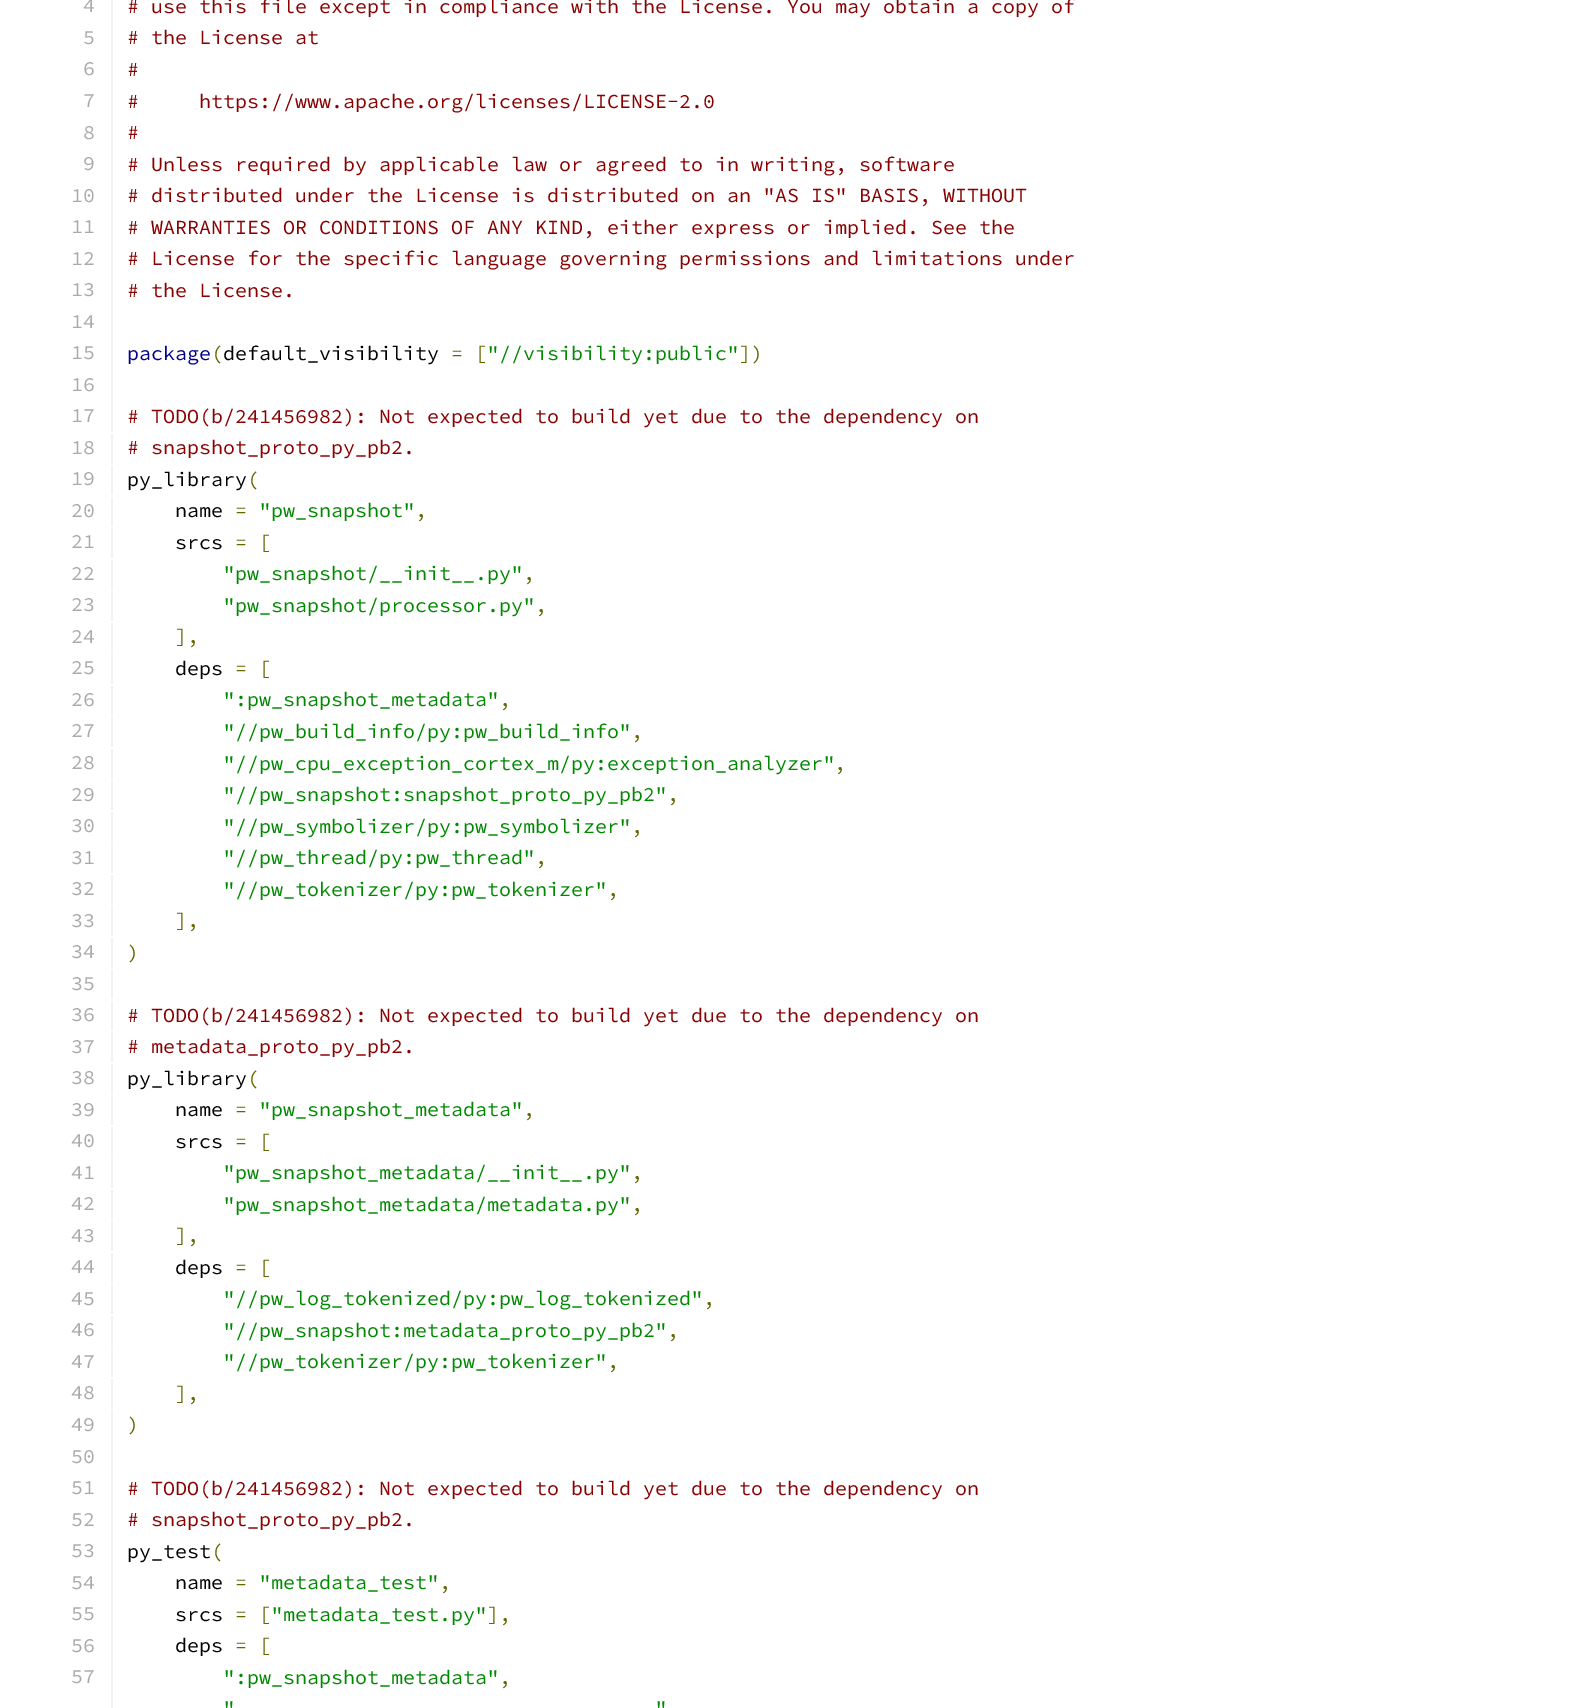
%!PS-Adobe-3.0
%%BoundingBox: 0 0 1573 1708
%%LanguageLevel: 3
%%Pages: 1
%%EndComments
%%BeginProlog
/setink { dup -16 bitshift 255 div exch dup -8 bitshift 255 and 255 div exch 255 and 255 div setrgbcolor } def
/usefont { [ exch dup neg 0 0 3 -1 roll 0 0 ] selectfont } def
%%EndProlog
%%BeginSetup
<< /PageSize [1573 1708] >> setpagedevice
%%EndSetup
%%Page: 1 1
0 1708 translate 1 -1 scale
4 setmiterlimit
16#FFFFFF setink
0 0 1573 1708 rectfill
16#F1F2F3 setink
111 0 2 432 rectfill
/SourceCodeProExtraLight-ExtraLight 20 usefont
16#AAAAAA setink
83 12 moveto (4) show
16#880000 setink
127 13 moveto (# use this file except in compliance with the License. You may obtain a copy of) show
16#AAAAAA setink
83 44 moveto (5) show
16#880000 setink
127 44 moveto (# the License at) show
16#AAAAAA setink
83 75 moveto (6) show
16#880000 setink
127 76 moveto (#) show
16#AAAAAA setink
83 107 moveto (7) show
16#880000 setink
127 108 moveto (#     https://www.apache.org/licenses/LICENSE-2.0) show
16#AAAAAA setink
83 139 moveto (8) show
16#880000 setink
127 139 moveto (#) show
16#AAAAAA setink
83 170 moveto (9) show
16#880000 setink
127 171 moveto (# Unless required by applicable law or agreed to in writing, software) show
16#AAAAAA setink
71 202 moveto (10) show
16#880000 setink
127 202 moveto (# distributed under the License is distributed on an "AS IS" BASIS, WITHOUT) show
16#AAAAAA setink
71 233 moveto (11) show
16#880000 setink
127 234 moveto (# WARRANTIES OR CONDITIONS OF ANY KIND, either express or implied. See the) show
16#AAAAAA setink
71 265 moveto (12) show
16#880000 setink
127 265 moveto (# License for the specific language governing permissions and limitations under) show
16#AAAAAA setink
71 296 moveto (13) show
16#880000 setink
127 297 moveto (# the License.) show
16#AAAAAA setink
71 328 moveto (14) show
71 359 moveto (15) show
16#000088 setink
127 360 moveto (package) show
16#666600 setink
211 360 moveto (\() show
16#000000 setink
223 360 moveto (default_visibility) show
16#666600 setink
451 360 moveto (= [) show
16#008800 setink
487 360 moveto ("//visibility:public") show
16#666600 setink
739 360 moveto (]\)) show
16#AAAAAA setink
71 391 moveto (16) show
71 422 moveto (17) show
16#880000 setink
127 423 moveto (# TODO\(b/241456982\): Not expected to build yet due to the dependency on) show
16#F1F2F3 setink
111 434 2 30 rectfill
16#AAAAAA setink
71 454 moveto (18) show
16#880000 setink
127 454 moveto (# snapshot_proto_py_pb2.) show
16#F1F2F3 setink
111 465 2 30 rectfill
16#AAAAAA setink
71 485 moveto (19) show
16#000000 setink
127 486 moveto (py_library) show
16#666600 setink
247 486 moveto (\() show
16#F1F2F3 setink
111 497 2 30 rectfill
16#AAAAAA setink
71 517 moveto (20) show
16#000000 setink
175 517 moveto (name) show
16#666600 setink
235 517 moveto (=) show
16#008800 setink
259 517 moveto ("pw_snapshot") show
16#666600 setink
415 517 moveto (,) show
16#F1F2F3 setink
111 528 2 30 rectfill
16#AAAAAA setink
71 548 moveto (21) show
16#000000 setink
175 549 moveto (srcs) show
16#666600 setink
235 549 moveto (= [) show
16#F1F2F3 setink
111 560 2 30 rectfill
16#AAAAAA setink
71 580 moveto (22) show
16#008800 setink
223 580 moveto ("pw_snapshot/__init__.py") show
16#666600 setink
523 580 moveto (,) show
16#F1F2F3 setink
111 591 2 30 rectfill
16#AAAAAA setink
71 611 moveto (23) show
16#008800 setink
223 612 moveto ("pw_snapshot/processor.py") show
16#666600 setink
535 612 moveto (,) show
16#F1F2F3 setink
111 623 2 30 rectfill
16#AAAAAA setink
71 643 moveto (24) show
16#666600 setink
175 643 moveto (],) show
16#F1F2F3 setink
111 654 2 30 rectfill
16#AAAAAA setink
71 674 moveto (25) show
16#000000 setink
175 675 moveto (deps) show
16#666600 setink
235 675 moveto (= [) show
16#F1F2F3 setink
111 686 2 30 rectfill
16#AAAAAA setink
71 706 moveto (26) show
16#008800 setink
223 706 moveto (":pw_snapshot_metadata") show
16#666600 setink
499 706 moveto (,) show
16#F1F2F3 setink
111 717 2 30 rectfill
16#AAAAAA setink
71 737 moveto (27) show
16#008800 setink
223 738 moveto ("//pw_build_info/py:pw_build_info") show
16#666600 setink
631 738 moveto (,) show
16#F1F2F3 setink
111 749 2 30 rectfill
16#AAAAAA setink
71 769 moveto (28) show
16#008800 setink
223 770 moveto ("//pw_cpu_exception_cortex_m/py:exception_analyzer") show
16#666600 setink
834 770 moveto (,) show
16#F1F2F3 setink
111 780 2 30 rectfill
16#AAAAAA setink
71 801 moveto (29) show
16#008800 setink
223 801 moveto ("//pw_snapshot:snapshot_proto_py_pb2") show
16#666600 setink
667 801 moveto (,) show
16#F1F2F3 setink
111 812 2 30 rectfill
16#AAAAAA setink
71 832 moveto (30) show
16#008800 setink
223 833 moveto ("//pw_symbolizer/py:pw_symbolizer") show
16#666600 setink
631 833 moveto (,) show
16#F1F2F3 setink
111 843 2 30 rectfill
16#AAAAAA setink
71 864 moveto (31) show
16#008800 setink
223 864 moveto ("//pw_thread/py:pw_thread") show
16#666600 setink
535 864 moveto (,) show
16#F1F2F3 setink
111 875 2 30 rectfill
16#AAAAAA setink
71 895 moveto (32) show
16#008800 setink
223 896 moveto ("//pw_tokenizer/py:pw_tokenizer") show
16#666600 setink
607 896 moveto (,) show
16#F1F2F3 setink
111 906 2 30 rectfill
16#AAAAAA setink
71 927 moveto (33) show
16#666600 setink
175 927 moveto (],) show
16#F1F2F3 setink
111 938 2 30 rectfill
16#AAAAAA setink
71 958 moveto (34) show
16#666600 setink
127 959 moveto (\)) show
16#F1F2F3 setink
111 969 2 30 rectfill
16#AAAAAA setink
71 990 moveto (35) show
16#F1F2F3 setink
111 1001 2 30 rectfill
16#AAAAAA setink
71 1021 moveto (36) show
16#880000 setink
127 1022 moveto (# TODO\(b/241456982\): Not expected to build yet due to the dependency on) show
16#F1F2F3 setink
111 1032 2 30 rectfill
16#AAAAAA setink
71 1053 moveto (37) show
16#880000 setink
127 1053 moveto (# metadata_proto_py_pb2.) show
16#F1F2F3 setink
111 1064 2 30 rectfill
16#AAAAAA setink
71 1084 moveto (38) show
16#000000 setink
127 1085 moveto (py_library) show
16#666600 setink
247 1085 moveto (\() show
16#F1F2F3 setink
111 1095 2 30 rectfill
16#AAAAAA setink
71 1116 moveto (39) show
16#000000 setink
175 1116 moveto (name) show
16#666600 setink
235 1116 moveto (=) show
16#008800 setink
259 1116 moveto ("pw_snapshot_metadata") show
16#666600 setink
523 1116 moveto (,) show
16#F1F2F3 setink
111 1127 2 30 rectfill
16#AAAAAA setink
71 1147 moveto (40) show
16#000000 setink
175 1148 moveto (srcs) show
16#666600 setink
235 1148 moveto (= [) show
16#F1F2F3 setink
111 1158 2 30 rectfill
16#AAAAAA setink
71 1179 moveto (41) show
16#008800 setink
223 1179 moveto ("pw_snapshot_metadata/__init__.py") show
16#666600 setink
631 1179 moveto (,) show
16#F1F2F3 setink
111 1190 2 30 rectfill
16#AAAAAA setink
71 1210 moveto (42) show
16#008800 setink
223 1211 moveto ("pw_snapshot_metadata/metadata.py") show
16#666600 setink
631 1211 moveto (,) show
16#F1F2F3 setink
111 1221 2 30 rectfill
16#AAAAAA setink
71 1242 moveto (43) show
16#666600 setink
175 1242 moveto (],) show
16#F1F2F3 setink
111 1253 2 30 rectfill
16#AAAAAA setink
71 1273 moveto (44) show
16#000000 setink
175 1274 moveto (deps) show
16#666600 setink
235 1274 moveto (= [) show
16#F1F2F3 setink
111 1284 2 30 rectfill
16#AAAAAA setink
71 1305 moveto (45) show
16#008800 setink
223 1305 moveto ("//pw_log_tokenized/py:pw_log_tokenized") show
16#666600 setink
703 1305 moveto (,) show
16#F1F2F3 setink
111 1316 2 30 rectfill
16#AAAAAA setink
71 1336 moveto (46) show
16#008800 setink
223 1337 moveto ("//pw_snapshot:metadata_proto_py_pb2") show
16#666600 setink
667 1337 moveto (,) show
16#F1F2F3 setink
111 1347 2 30 rectfill
16#AAAAAA setink
71 1368 moveto (47) show
16#008800 setink
223 1368 moveto ("//pw_tokenizer/py:pw_tokenizer") show
16#666600 setink
607 1368 moveto (,) show
16#F1F2F3 setink
111 1379 2 30 rectfill
16#AAAAAA setink
71 1399 moveto (48) show
16#666600 setink
175 1400 moveto (],) show
16#F1F2F3 setink
111 1410 2 298 rectfill
16#AAAAAA setink
71 1431 moveto (49) show
16#666600 setink
127 1431 moveto (\)) show
16#AAAAAA setink
71 1463 moveto (50) show
71 1494 moveto (51) show
16#880000 setink
127 1495 moveto (# TODO\(b/241456982\): Not expected to build yet due to the dependency on) show
16#AAAAAA setink
71 1526 moveto (52) show
16#880000 setink
127 1526 moveto (# snapshot_proto_py_pb2.) show
16#AAAAAA setink
71 1557 moveto (53) show
16#000000 setink
127 1558 moveto (py_test) show
16#666600 setink
211 1558 moveto (\() show
16#AAAAAA setink
71 1589 moveto (54) show
16#000000 setink
175 1589 moveto (name) show
16#666600 setink
235 1589 moveto (=) show
16#008800 setink
259 1589 moveto ("metadata_test") show
16#666600 setink
439 1589 moveto (,) show
16#AAAAAA setink
71 1620 moveto (55) show
16#000000 setink
175 1621 moveto (srcs) show
16#666600 setink
235 1621 moveto (= [) show
16#008800 setink
271 1621 moveto ("metadata_test.py") show
16#666600 setink
487 1621 moveto (],) show
16#AAAAAA setink
71 1652 moveto (56) show
16#000000 setink
175 1652 moveto (deps) show
16#666600 setink
235 1652 moveto (= [) show
16#AAAAAA setink
71 1683 moveto (57) show
16#008800 setink
223 1684 moveto (":pw_snapshot_metadata") show
16#666600 setink
499 1684 moveto (,) show
16#008800 setink
223 1715 moveto (") show
655 1715 moveto (") show
showpage
%%EOF
